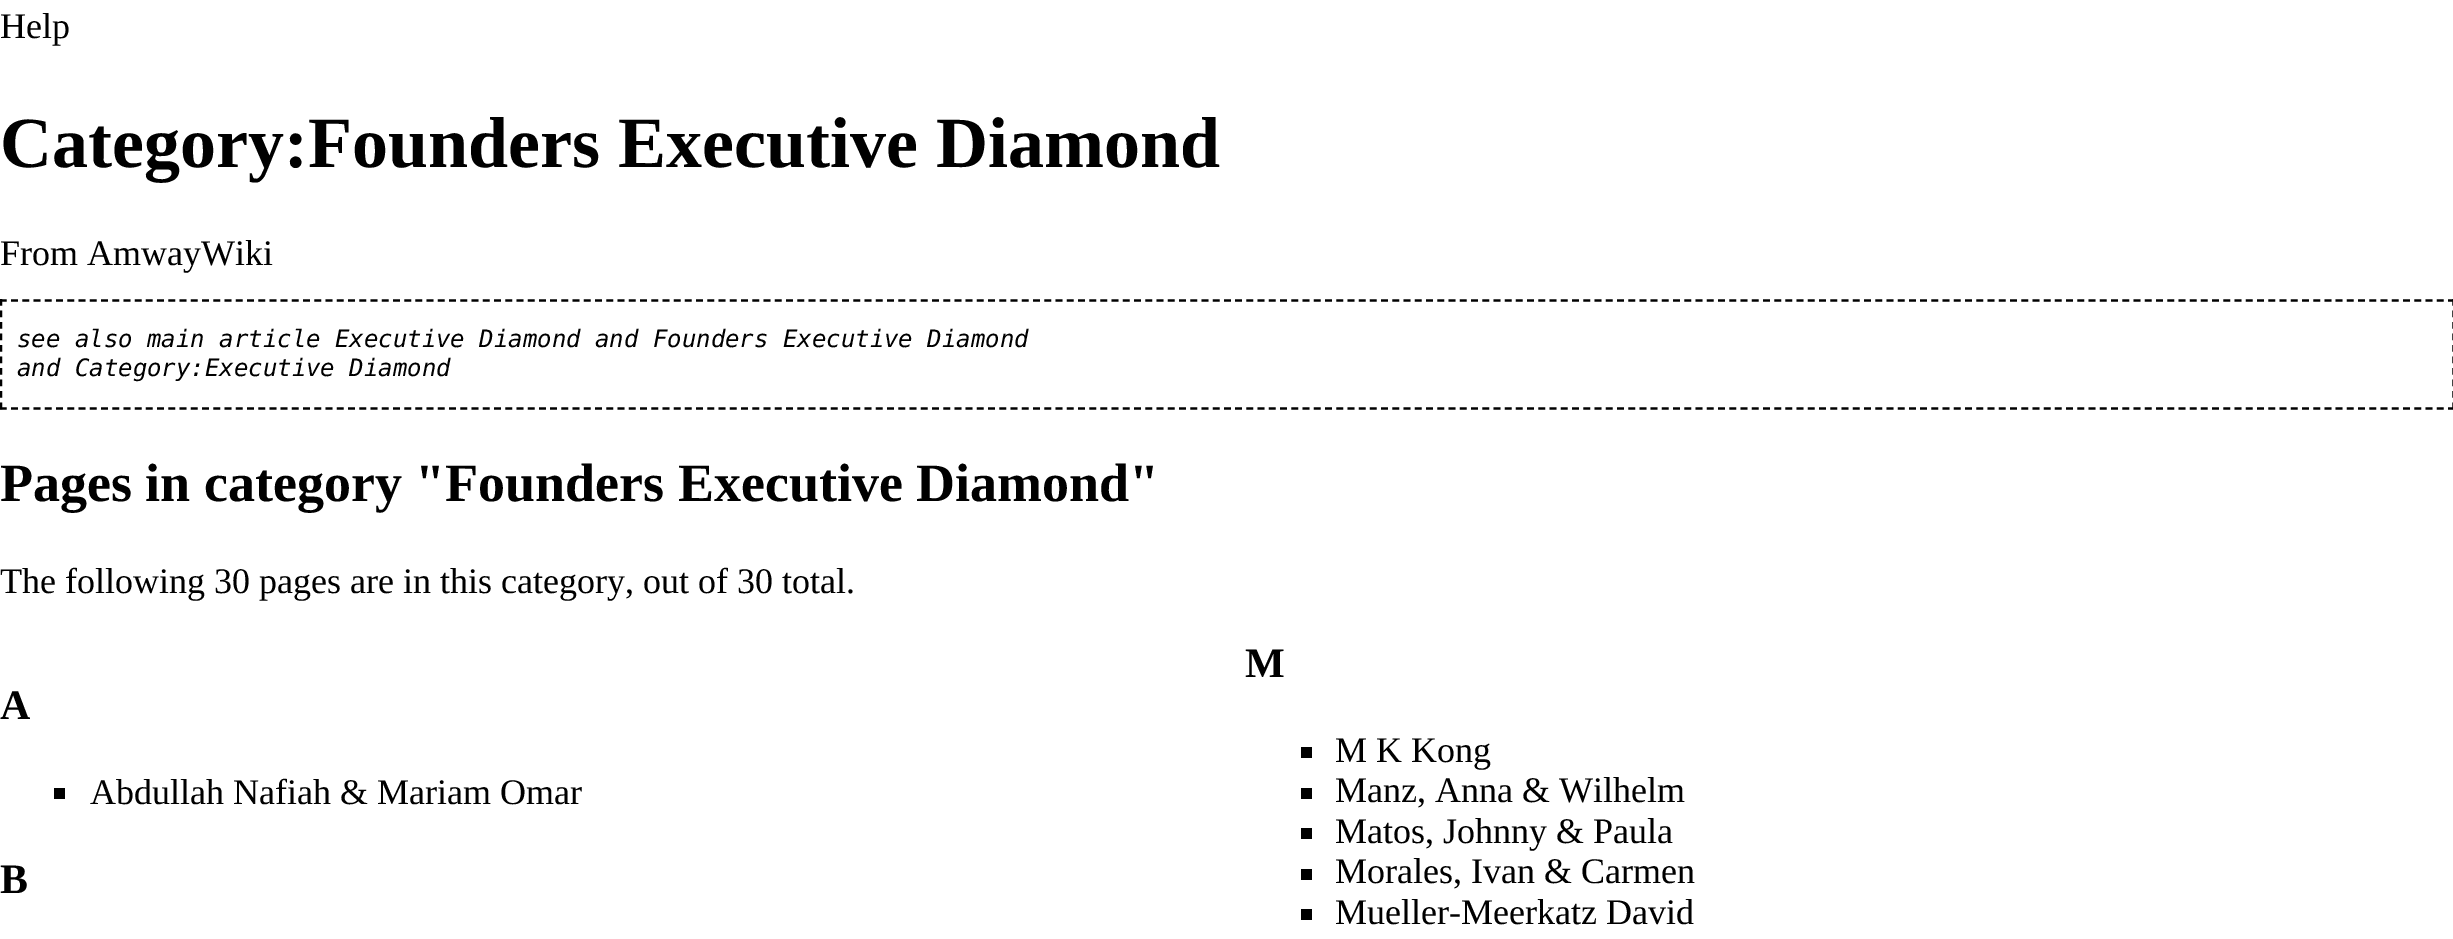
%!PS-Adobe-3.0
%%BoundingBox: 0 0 2453 939
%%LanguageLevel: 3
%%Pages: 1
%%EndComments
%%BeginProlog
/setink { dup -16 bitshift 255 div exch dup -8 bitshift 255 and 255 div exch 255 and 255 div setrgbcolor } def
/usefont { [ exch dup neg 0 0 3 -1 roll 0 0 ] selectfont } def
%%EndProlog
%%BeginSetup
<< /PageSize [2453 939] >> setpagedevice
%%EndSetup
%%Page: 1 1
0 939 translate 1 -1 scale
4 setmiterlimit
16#FFFFFF setink
0 0 2453 939 rectfill
/LiberationSerif-Regular 36 usefont
16#000000 setink
0 38 moveto (Help) show
/LiberationSerif-Bold 72 usefont
0 167 moveto (Category:Founders Executive Diamond) show
/LiberationSerif-Regular 36 usefont
0 265 moveto (From AmwayWiki) show
2.2 setlinewidth
[6.75 4.48] 0 setdash
0 300.5 moveto 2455 300.5 lineto stroke
[6.75 4.75] 0 setdash
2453.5 299 moveto 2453.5 409.5 lineto stroke
[6.75 4.48] 0 setdash
0 408.5 moveto 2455 408.5 lineto stroke
[6.75 4.75] 0 setdash
1 299 moveto 1 409.5 lineto stroke
/DejaVuSansMono-Italic 24 usefont
17 347 moveto (see also main article Executive Diamond and Founders Executive Diamond) show
17 376 moveto (and Category:Executive Diamond) show
/LiberationSerif-Bold 54 usefont
0 501 moveto (Pages in category "Founders Executive Diamond") show
/LiberationSerif-Regular 36 usefont
0 593 moveto (The following 30 pages are in this category, out of 30 total.) show
/LiberationSerif-Bold 42 usefont
0 719 moveto (A) show
54 788 11 11 rectfill
/LiberationSerif-Regular 36 usefont
90 804 moveto (Abdullah Nafiah & Mariam Omar) show
/LiberationSerif-Bold 42 usefont
1245 677 moveto (M) show
1301 747 11 11 rectfill
/LiberationSerif-Regular 36 usefont
1335 762 moveto (M K Kong) show
1301 788 11 11 rectfill
1335 802 moveto (Manz, Anna & Wilhelm) show
1301 828 11 11 rectfill
1335 843 moveto (Matos, Johnny & Paula) show
1301 869 11 11 rectfill
1335 883 moveto (Morales, Ivan & Carmen) show
1301 909 11 11 rectfill
1335 924 moveto (Mueller-Meerkatz David) show
/LiberationSerif-Bold 42 usefont
0 893 moveto (B) show
showpage
%%EOF
